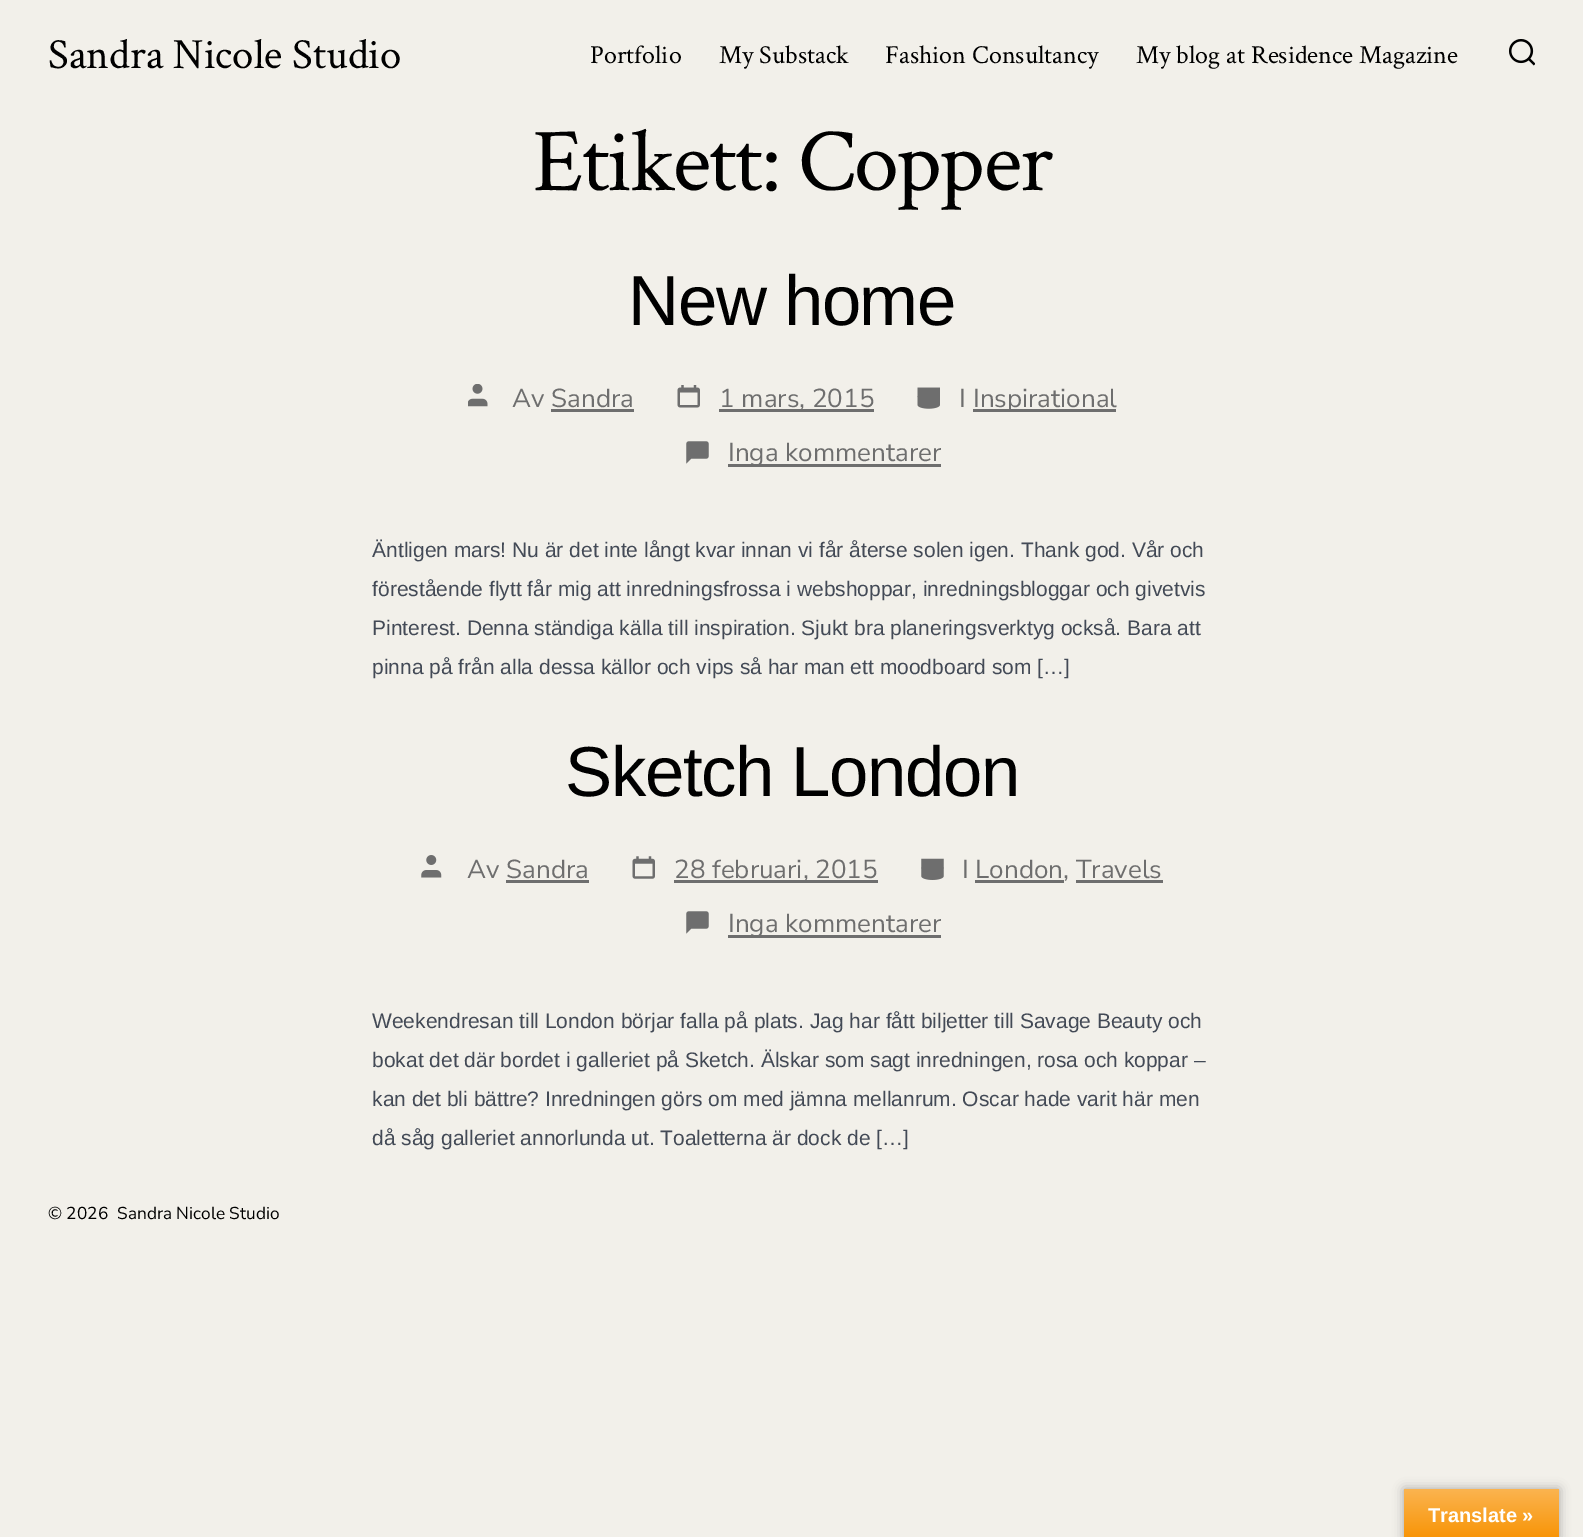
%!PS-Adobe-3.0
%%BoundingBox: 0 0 1583 1537
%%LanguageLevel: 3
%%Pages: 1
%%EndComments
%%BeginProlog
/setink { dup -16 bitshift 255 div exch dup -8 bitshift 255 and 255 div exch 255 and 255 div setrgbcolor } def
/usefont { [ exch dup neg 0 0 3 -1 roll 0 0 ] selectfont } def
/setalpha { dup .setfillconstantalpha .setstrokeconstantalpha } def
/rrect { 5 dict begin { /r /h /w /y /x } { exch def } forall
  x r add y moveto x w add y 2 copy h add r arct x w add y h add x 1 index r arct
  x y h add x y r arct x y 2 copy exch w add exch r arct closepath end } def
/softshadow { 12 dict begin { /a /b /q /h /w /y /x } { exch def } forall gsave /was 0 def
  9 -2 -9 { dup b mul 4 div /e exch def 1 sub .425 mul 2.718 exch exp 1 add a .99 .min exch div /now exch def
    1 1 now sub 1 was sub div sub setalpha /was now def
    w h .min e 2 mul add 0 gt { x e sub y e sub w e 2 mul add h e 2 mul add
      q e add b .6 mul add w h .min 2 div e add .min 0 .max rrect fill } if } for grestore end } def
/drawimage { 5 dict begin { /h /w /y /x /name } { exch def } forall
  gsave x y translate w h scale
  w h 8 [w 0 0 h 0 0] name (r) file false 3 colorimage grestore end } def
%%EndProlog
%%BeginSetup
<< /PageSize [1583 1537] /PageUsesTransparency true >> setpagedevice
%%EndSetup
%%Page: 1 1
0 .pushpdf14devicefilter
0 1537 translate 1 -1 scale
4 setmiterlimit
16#F2F0EA setink
0 0 1583 1537 rectfill
/CrimsonText-Regular 43 usefont
16#000000 setink
48 68 moveto (Sandra Nicole Studio) show
/CrimsonText-Regular 26 usefont
[
    [(Portfolio) 590 63]
    [(My Substack) 719 63]
    [(Fashion Consultancy) 885 63]
    [(My blog at Residence Magazine) 1136 63]
] { aload pop moveto show } forall
(img1.raw) 1509 39 26 27 drawimage
/CrimsonText-Regular 90.25 usefont
533 190 moveto -1.75 0 (Etikett: Copper) ashow
/LiberationSans-Regular 70.75 usefont
628 325 moveto -1.4 0 (New home) ashow
(img2.raw) 468 384 20 23 drawimage
/NunitoSans-Regular 26 usefont
16#6E6E6E setink
512 407 moveto (Av Sandra) show
551 409 83 3 rectfill
(img3.raw) 677 385 23 23 drawimage
719 409 155 3 rectfill
719 407 moveto (1 mars, 2015) show
(img4.raw) 917 387 23 22 drawimage
959 407 moveto (I) show
973 409 143 3 rectfill
973 407 moveto (Inspirational) show
(img5.raw) 686 441 23 23 drawimage
728 464 213 3 rectfill
728 461 moveto (Inga kommentarer) show
/LiberationSans-Regular 21 usefont
16#434A56 setink
[
    [(Äntligen mars! Nu är det inte långt kvar innan vi får återse solen igen. Thank god. Vår och) 372 557]
    [(förestående flytt får mig att inredningsfrossa i webshoppar, inredningsbloggar och givetvis) 372 596]
    [(Pinterest. Denna ständiga källa till inspiration. Sjukt bra planeringsverktyg också. Bara att) 372 635]
    [(pinna på från alla dessa källor och vips så har man ett moodboard som […]) 372 674]
] { aload pop moveto show } forall
/LiberationSans-Regular 70.75 usefont
16#000000 setink
565 796 moveto -1.4 0 (Sketch London) ashow
(img6.raw) 421 855 21 23 drawimage
/NunitoSans-Regular 26 usefont
16#6E6E6E setink
467 878 moveto (Av Sandra) show
506 880 83 3 rectfill
(img7.raw) 632 856 23 23 drawimage
674 880 204 3 rectfill
674 878 moveto (28 februari, 2015) show
(img8.raw) 921 858 23 22 drawimage
962 878 moveto (I London, Travels) show
975 880 89 3 rectfill
1076 880 87 3 rectfill
(img5.raw) 686 911 23 23 drawimage
728 935 213 3 rectfill
728 932 moveto (Inga kommentarer) show
/LiberationSans-Regular 21 usefont
16#434A56 setink
[
    [(Weekendresan till London börjar falla på plats. Jag har fått biljetter till Savage Beauty och) 372 1028]
    [(bokat det där bordet i galleriet på Sketch. Älskar som sagt inredningen, rosa och koppar –) 372 1067]
    [(kan det bli bättre? Inredningen görs om med jämna mellanrum. Oscar hade varit här men) 372 1106]
    [(då såg galleriet annorlunda ut. Toaletterna är dock de […]) 372 1145]
] { aload pop moveto show } forall
/NunitoSans-Regular 17.25 usefont
16#000000 setink
48 1219 moveto (© 2026) show
117 1219 moveto (Sandra Nicole Studio) show
1404 1489 155 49 0 5.5 0.3 softshadow
gsave 1404 1489 moveto 1559 1489 lineto 1559 1537 lineto 1404 1537 lineto closepath clip newpath
<< /ShadingType 2 /ColorSpace /DeviceRGB /Coords [1481 1489 1481 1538] /Extend [true true] /Function << /FunctionType 2 /Domain [0 1] /C0 [0.984 0.706 0.314] /C1 [0.973 0.58 0.024] /N 1 >> >> shfill grestore
/LiberationSans-Bold 20 usefont
16#FFFFFF setink
1428 1522 moveto (Translate ») show
.poppdf14devicefilter showpage
%%EOF
